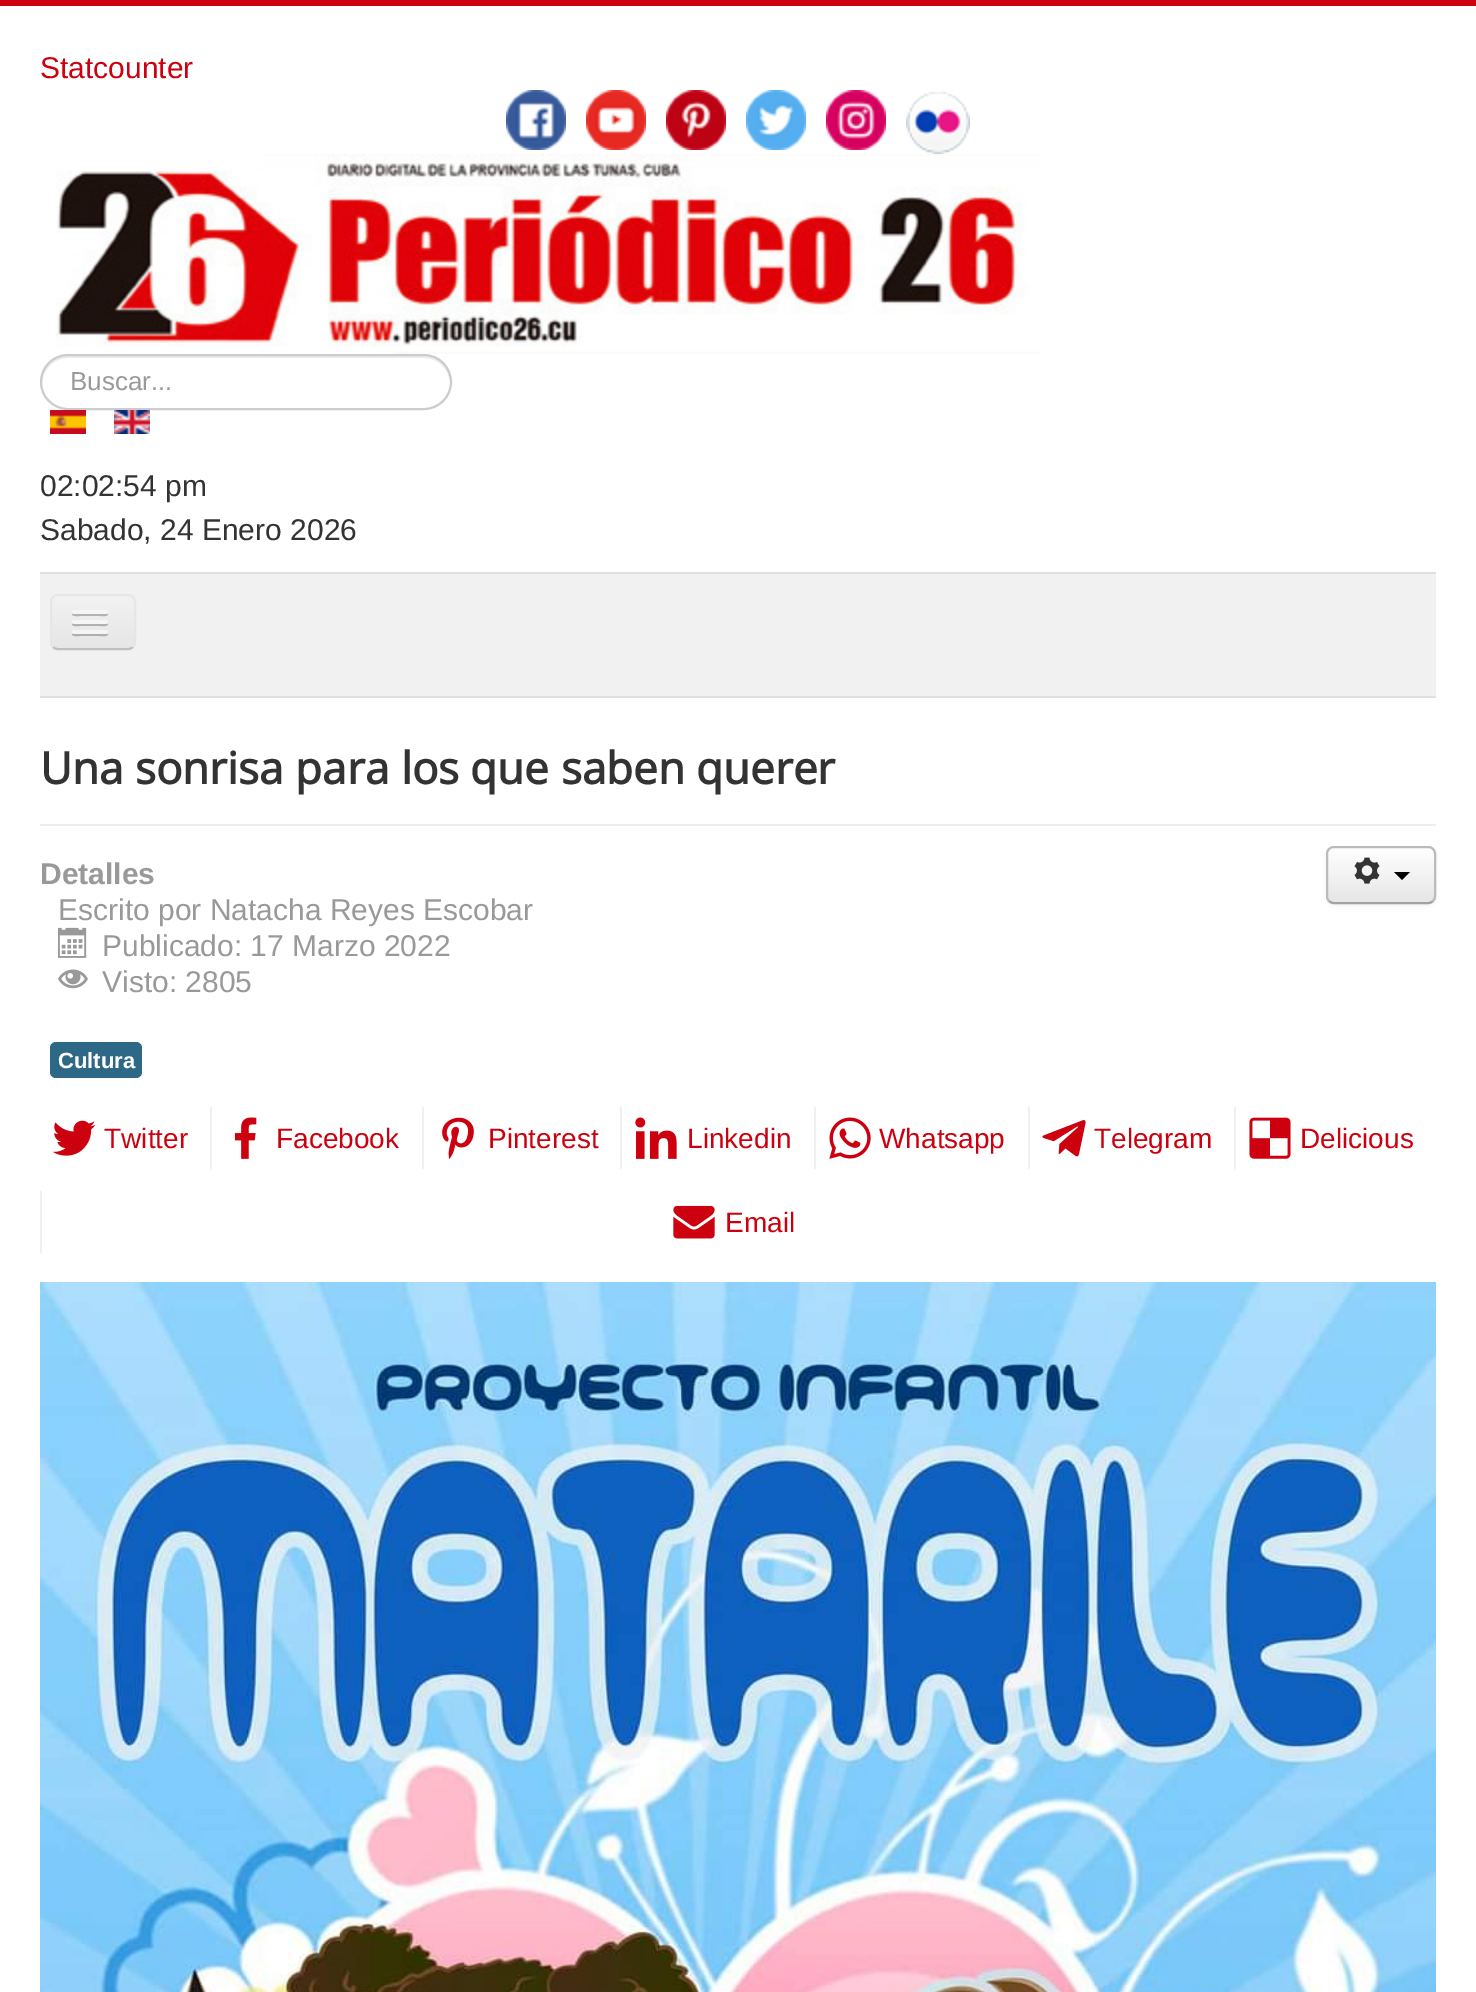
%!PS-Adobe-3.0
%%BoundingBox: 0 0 1476 1992
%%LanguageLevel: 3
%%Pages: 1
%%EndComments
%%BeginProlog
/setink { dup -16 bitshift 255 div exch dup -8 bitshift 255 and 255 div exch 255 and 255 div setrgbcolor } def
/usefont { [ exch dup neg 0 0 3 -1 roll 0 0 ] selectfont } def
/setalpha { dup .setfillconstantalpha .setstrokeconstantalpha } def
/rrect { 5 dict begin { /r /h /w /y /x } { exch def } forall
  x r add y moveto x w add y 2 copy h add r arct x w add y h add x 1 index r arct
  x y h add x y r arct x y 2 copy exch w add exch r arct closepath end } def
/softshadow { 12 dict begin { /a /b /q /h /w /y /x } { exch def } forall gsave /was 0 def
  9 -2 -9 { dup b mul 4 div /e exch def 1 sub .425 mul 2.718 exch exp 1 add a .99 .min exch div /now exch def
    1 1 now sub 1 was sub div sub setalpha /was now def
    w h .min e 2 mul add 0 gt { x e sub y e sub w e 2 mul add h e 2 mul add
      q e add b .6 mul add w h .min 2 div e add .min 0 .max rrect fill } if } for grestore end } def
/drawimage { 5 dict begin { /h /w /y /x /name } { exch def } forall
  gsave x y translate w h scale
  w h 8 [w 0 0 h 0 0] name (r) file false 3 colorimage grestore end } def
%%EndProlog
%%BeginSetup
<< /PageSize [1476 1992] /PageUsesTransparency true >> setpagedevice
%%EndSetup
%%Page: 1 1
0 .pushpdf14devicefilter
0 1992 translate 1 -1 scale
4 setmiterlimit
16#FFFFFF setink
0 0 1476 1992 rectfill
16#CC000E setink
0 0 1476 6 rectfill
/LiberationSans-Regular 30 usefont
40 78 moveto (Statcounter) show
(img1.raw) 506 90 60 60 drawimage
(img2.raw) 586 90 60 60 drawimage
(img3.raw) 666 90 60 60 drawimage
(img4.raw) 746 90 60 60 drawimage
(img5.raw) 826 90 60 60 drawimage
(img6.raw) 906 91 64 63 drawimage
(img7.raw) 56 154 984 200 drawimage
16#ECECEC setink
68 358 moveto 424 358 lineto 438 358 449 369 450 383 curveto 451 368 439 356 424 356 curveto 68 356 lineto 53 356 41 368 42 383 curveto 43 369 54 358 68 358 curveto closepath fill
16#CCCCCC setink
2 setlinewidth
41 355 410 54 27 rrect stroke
/LiberationSans-Regular 26 usefont
16#999999 setink
70 390 moveto (Buscar...) show
(img8.raw) 50 410 36 24 drawimage
(img9.raw) 114 410 36 24 drawimage
/LiberationSans-Regular 30 usefont
16#333333 setink
40 496 moveto (02:02:54 pm) show
40 540 moveto (Sabado, 24 Enero 2026) show
[
    [40 574 1396 122 16#F1F1F1]
    [40 572 1396 2 16#DFDFDF]
    [40 696 1396 2 16#DFDFDF]
] { aload pop setink rectfill } forall
gsave
50 594 86 56 8 rrect clip newpath
gsave 50 596 moveto 136 596 lineto 136 648 lineto 50 648 lineto closepath clip newpath
<< /ShadingType 2 /ColorSpace /DeviceRGB /Coords [93 596 93 648] /Extend [true true] /Function << /FunctionType 2 /Domain [0 1] /C0 [0.949 0.949 0.949] /C1 [0.902 0.902 0.902] /N 1 >> >> shfill grestore
grestore
16#BFBFBF setink
133 647 moveto 131.5 648.5 130 649 128 649 curveto 58 649 lineto 56 649 54.5 648.5 53 647 curveto stroke
16#E6E6E6 setink
53 647 moveto 51.5 645.5 51 644 51 642 curveto 51 602 lineto 51 600 51.5 598.5 53 597 curveto 54.5 595.5 56 595 58 595 curveto 128 595 lineto 130 595 131.5 595.5 133 597 curveto 134.5 598.5 135 600 135 602 curveto 135 642 lineto 135 644 134.5 645.5 133 647 curveto stroke
16#B3B3B3 setink
72.5 613 moveto 70 617 79 616 79.5 616 curveto 100.5 616 lineto 101 616 110 617 107.5 613 curveto 107.5 613.5 106.5 614 106 614 curveto 74 614 lineto 73.5 614 72.5 613.5 72.5 613 curveto closepath fill
16#F5F5F5 setink
72 610 36 4 2 rrect fill
16#B0B0B0 setink
72.5 623 moveto 70 627 79 626 79.5 626 curveto 100.5 626 lineto 101 626 110 627 107.5 623 curveto 107.5 623.5 106.5 624 106 624 curveto 74 624 lineto 73.5 624 72.5 623.5 72.5 623 curveto closepath fill
16#F5F5F5 setink
72 620 36 4 2 rrect fill
16#AFAFAF setink
72.5 633 moveto 70 637 79 636 79.5 636 curveto 100.5 636 lineto 101 636 110 637 107.5 633 curveto 107.5 633.5 106.5 634 106 634 curveto 74 634 lineto 73.5 634 72.5 633.5 72.5 633 curveto closepath fill
16#F5F5F5 setink
72 630 36 4 2 rrect fill
16#EEEEEE setink
40 824 1396 2 rectfill
/OpenSans-Bold 44 usefont
16#333333 setink
40 784 moveto (Una sonrisa para los que saben querer) show
/LiberationSans-Bold 30 usefont
16#999999 setink
40 884 moveto (Detalles) show
/LiberationSans-Regular 30 usefont
58 920 moveto (Escrito por Natacha Reyes Escobar) show
(img10.raw) 58 927 29 31 drawimage
102 956 moveto (Publicado: 17 Marzo 2022) show
(img11.raw) 58 969 30 20 drawimage
102 992 moveto (Visto: 2805) show
16#000000 setink
1326 848 110 58 8 2 0.05 softshadow
gsave
1326 846 110 58 8 rrect clip newpath
gsave 1326 848 moveto 1436 848 lineto 1436 902 lineto 1326 902 lineto closepath clip newpath
<< /ShadingType 2 /ColorSpace /DeviceRGB /Coords [1381 848 1381 902] /Extend [true true] /Function << /FunctionType 2 /Domain [0 1] /C0 [1 1 1] /C1 [0.902 0.902 0.902] /N 1 >> >> shfill grestore
grestore
16#A2A2A2 setink
1433 901 moveto 1431.5 902.5 1430 903 1428 903 curveto 1334 903 lineto 1332 903 1330.5 902.5 1329 901 curveto stroke
16#BBBBBB setink
1329 901 moveto 1327.5 899.5 1327 898 1327 896 curveto 1327 854 lineto 1327 852 1327.5 850.5 1329 849 curveto 1330.5 847.5 1332 847 1334 847 curveto 1428 847 lineto 1430 847 1431.5 847.5 1433 849 curveto 1434.5 850.5 1435 852 1435 854 curveto 1435 896 lineto 1435 898 1434.5 899.5 1433 901 curveto stroke
(img12.raw) 1354 857 26 27 drawimage
16#000000 setink
1394 872 moveto 1410 872 lineto 1402 880 lineto closepath fill
16#2D6987 setink
50 1042 92 36 6 rrect fill
/LiberationSans-Bold 22 usefont
16#FFFFFF setink
58 1068 moveto (Cultura) show
(img13.raw) 52 1120 44 36 drawimage
/LiberationSans-Regular 28 usefont
16#CC000E setink
104 1148 moveto (Twitter) show
16#F0F0F0 setink
210 1170 moveto 210 1106 lineto 212 1108 lineto 212 1168 lineto closepath fill
(img14.raw) 234 1117 23 42 drawimage
16#CC000E setink
276 1148 moveto (Facebook) show
16#F0F0F0 setink
422 1170 moveto 422 1106 lineto 424 1108 lineto 424 1168 lineto closepath fill
(img15.raw) 442 1117 32 42 drawimage
16#CC000E setink
488 1148 moveto (Pinterest) show
16#F0F0F0 setink
620 1170 moveto 620 1106 lineto 622 1108 lineto 622 1168 lineto closepath fill
(img16.raw) 635 1117 42 42 drawimage
16#CC000E setink
687 1148 moveto (Linkedin) show
16#F0F0F0 setink
814 1170 moveto 814 1106 lineto 816 1108 lineto 816 1168 lineto closepath fill
(img17.raw) 829 1117 42 42 drawimage
16#CC000E setink
879 1148 moveto (Whatsapp) show
16#F0F0F0 setink
1028 1170 moveto 1028 1106 lineto 1030 1108 lineto 1030 1168 lineto closepath fill
(img18.raw) 1042 1120 44 37 drawimage
16#CC000E setink
1094 1148 moveto (Telegram) show
16#F0F0F0 setink
1234 1170 moveto 1234 1106 lineto 1236 1108 lineto 1236 1168 lineto closepath fill
(img19.raw) 1249 1117 42 42 drawimage
16#CC000E setink
1300 1148 moveto (Delicious) show
16#F0F0F0 setink
40 1190 moveto 40 1254 lineto 42 1252 lineto 42 1192 lineto closepath fill
(img20.raw) 673 1205 42 34 drawimage
16#CC000E setink
725 1232 moveto (Email) show
(img21.raw) 40 1282 1396 710 drawimage
.poppdf14devicefilter showpage
%%EOF
